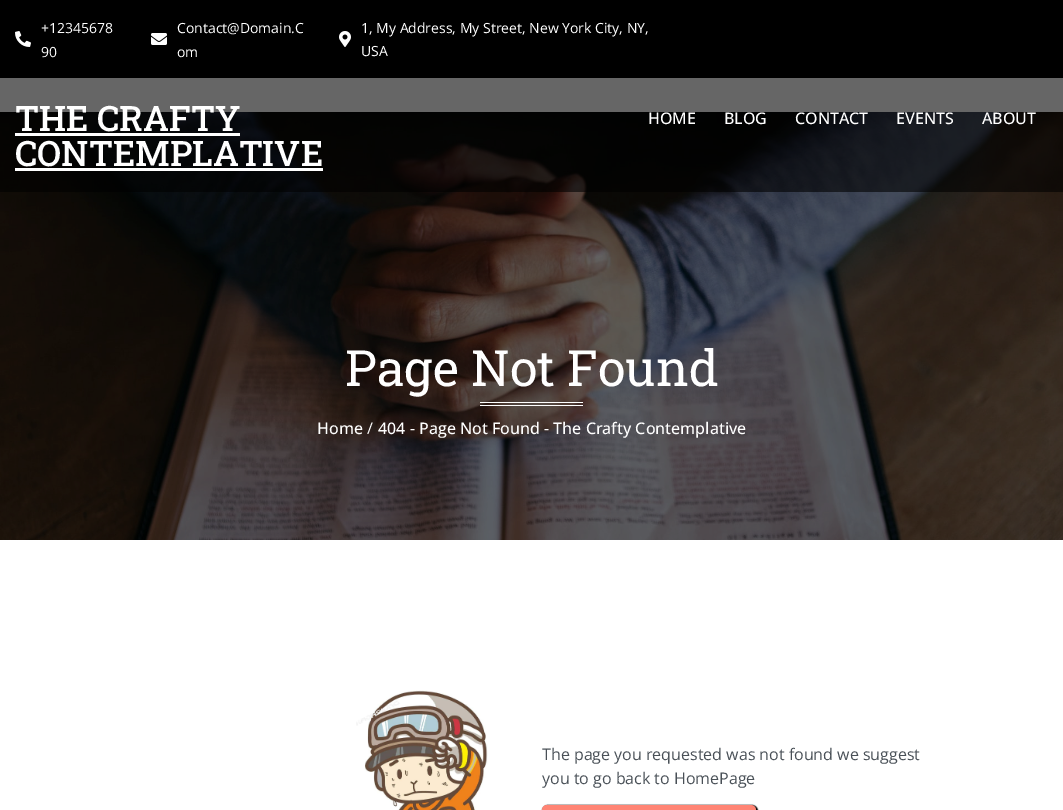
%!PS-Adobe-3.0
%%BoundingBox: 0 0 1063 810
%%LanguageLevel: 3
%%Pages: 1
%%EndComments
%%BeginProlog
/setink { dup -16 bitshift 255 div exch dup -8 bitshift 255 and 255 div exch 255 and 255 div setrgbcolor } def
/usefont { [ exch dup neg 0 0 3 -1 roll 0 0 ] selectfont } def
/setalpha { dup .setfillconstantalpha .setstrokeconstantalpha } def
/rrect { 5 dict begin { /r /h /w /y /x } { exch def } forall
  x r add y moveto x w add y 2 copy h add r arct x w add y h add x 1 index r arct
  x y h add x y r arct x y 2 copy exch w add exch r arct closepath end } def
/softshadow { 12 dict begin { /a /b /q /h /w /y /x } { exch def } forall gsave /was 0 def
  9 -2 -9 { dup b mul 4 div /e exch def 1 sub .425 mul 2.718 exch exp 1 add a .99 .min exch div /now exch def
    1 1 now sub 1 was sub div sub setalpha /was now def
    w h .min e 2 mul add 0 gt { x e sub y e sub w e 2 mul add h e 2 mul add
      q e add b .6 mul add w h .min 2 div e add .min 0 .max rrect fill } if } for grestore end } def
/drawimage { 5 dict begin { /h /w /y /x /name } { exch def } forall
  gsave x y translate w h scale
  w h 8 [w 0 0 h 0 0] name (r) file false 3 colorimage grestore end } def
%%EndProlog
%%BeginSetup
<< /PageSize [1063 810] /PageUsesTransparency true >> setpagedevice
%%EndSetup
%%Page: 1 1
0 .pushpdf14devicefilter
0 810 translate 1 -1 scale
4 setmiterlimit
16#FFFFFF setink
0 0 1063 810 rectfill
16#000000 setink
0 0 1063 78 rectfill
(img1.raw) 15 31 16 16 drawimage
/OpenSans-Regular 14 usefont
16#FFFFFF setink
41 33 moveto (+12345678) show
41 57 moveto (90) show
(img2.raw) 151 33 16 12 drawimage
177 33 moveto (Contact@Domain.C) show
177 57 moveto (om) show
(img3.raw) 339 31 12 16 drawimage
361 33 moveto (1, My Address, My Street, New York City, NY,) show
361 56 moveto (USA) show
(img4.raw) 0 112 1063 428 drawimage
0.6 setalpha
16#000000 setink
0 78 1063 114 rectfill
/RobotoSlab-Medium 35 usefont
1 setalpha
16#FFFFFF setink
15 131 moveto (THE CRAFTY) show
15 133 225 3 rectfill
15 166 moveto (CONTEMPLATIVE) show
15 168 308 3 rectfill
/OpenSans-Medium 16 usefont
[
    [(HOME) 648 124]
    [(BLOG) 724 124]
    [(CONTACT) 795 124]
    [(EVENTS) 896 124]
    [(ABOUT) 982 124]
] { aload pop moveto show } forall
/RobotoSlab-Regular 50 usefont
345 386 moveto (Page Not Found) show
480 402 103 1 rectfill
480 405 103 1 rectfill
/OpenSans-Medium 16 usefont
317 434 moveto (Home) show
/OpenSans-Regular 16 usefont
367 434 moveto (/) show
/OpenSans-Medium 16 usefont
378 434 moveto (404 - Page Not Found - The Crafty Contemplative) show
(img5.raw) 356 690 132 120 drawimage
/OpenSans-Regular 16 usefont
16#495057 setink
542 760 moveto (The page you requested was not found we suggest) show
542 784 moveto (you to go back to HomePage) show
16#000000 setink
542 805 216 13 6 0.5 1 softshadow
16#FF8474 setink
542 805 214 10 5 rrect fill
.poppdf14devicefilter showpage
%%EOF
